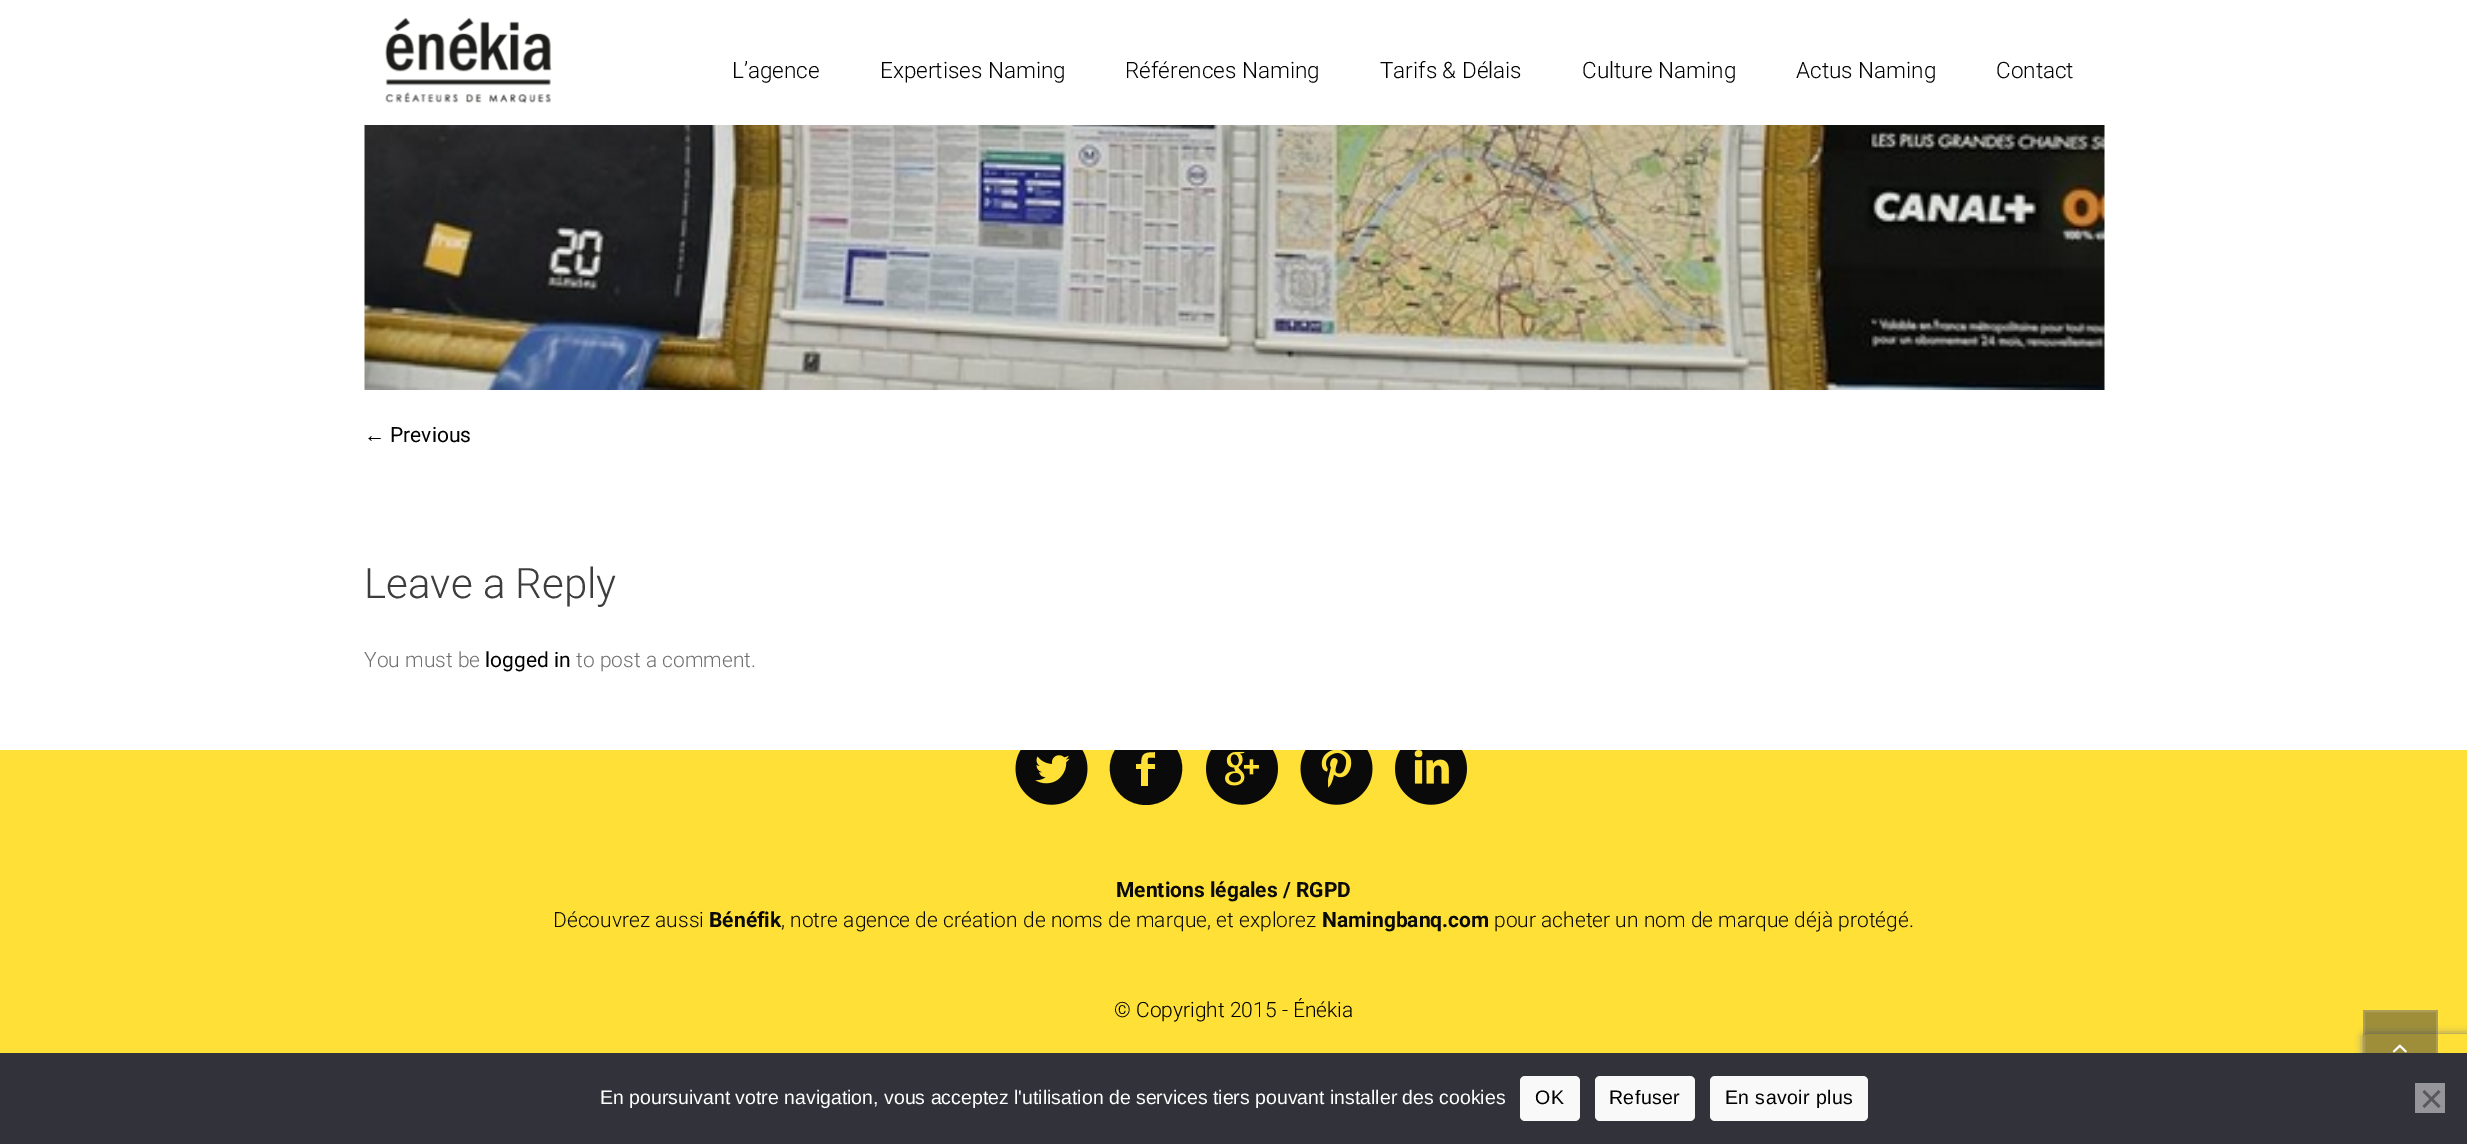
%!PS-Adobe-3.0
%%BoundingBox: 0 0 2467 1144
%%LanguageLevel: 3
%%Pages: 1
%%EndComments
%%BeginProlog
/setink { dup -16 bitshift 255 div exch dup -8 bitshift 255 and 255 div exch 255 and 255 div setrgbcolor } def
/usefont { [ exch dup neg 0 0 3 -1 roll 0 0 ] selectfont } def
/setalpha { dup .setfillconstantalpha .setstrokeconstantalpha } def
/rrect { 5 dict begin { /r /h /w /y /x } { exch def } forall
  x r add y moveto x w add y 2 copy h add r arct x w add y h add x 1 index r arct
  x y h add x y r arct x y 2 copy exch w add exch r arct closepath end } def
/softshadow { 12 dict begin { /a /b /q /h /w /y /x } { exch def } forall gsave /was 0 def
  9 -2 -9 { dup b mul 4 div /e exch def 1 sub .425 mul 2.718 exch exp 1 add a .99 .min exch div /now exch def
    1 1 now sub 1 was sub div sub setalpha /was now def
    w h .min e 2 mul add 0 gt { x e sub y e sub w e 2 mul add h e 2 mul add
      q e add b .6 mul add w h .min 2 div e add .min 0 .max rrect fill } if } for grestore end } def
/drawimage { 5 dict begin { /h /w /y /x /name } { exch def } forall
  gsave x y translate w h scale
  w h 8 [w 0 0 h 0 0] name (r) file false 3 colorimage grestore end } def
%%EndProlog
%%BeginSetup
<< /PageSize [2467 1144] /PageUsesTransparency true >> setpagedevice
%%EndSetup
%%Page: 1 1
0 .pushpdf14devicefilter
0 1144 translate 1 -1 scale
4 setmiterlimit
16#FFE037 setink
0 0 2467 1144 rectfill
16#0A0A0A setink
1146 733 moveto 1154 733 1162 735 1169 741 curveto 1195 762 1180 805 1146 805 curveto 1112 805 1097 762 1123 741 curveto 1130 735 1138 733 1146 733 curveto closepath 1155 758 moveto 1155 752 lineto 1144 752 1141 753 1141 764 curveto 1136 764 lineto 1136 769 lineto 1141 769 lineto 1141 786 lineto 1148 786 lineto 1148 769 lineto 1155 769 lineto 1155 764 lineto 1148 764 lineto 1148 756 1147 758 1155 758 curveto closepath fill
16#FFFFFF setink
0 0 2467 750 rectfill
(img1.raw) 385 17 167 87 drawimage
/Roboto-Light 22.5 usefont
16#000000 setink
[
    [(L’agence) 732 78]
    [(Expertises Naming) 880 78]
    [(Références Naming) 1125 78]
    [(Tarifs & Délais) 1380 78]
    [(Culture Naming) 1582 78]
    [(Actus Naming) 1796 78]
    [(Contact) 1996 78]
] { aload pop moveto show } forall
(img2.raw) 364 125 1741 265 drawimage
/LiberationSans-Regular 21 usefont
364 442 moveto (←) show
/Roboto-Regular 21 usefont
390 442 moveto (Previous) show
/Roboto-Light 42 usefont
16#3D3D3D setink
364 598 moveto (Leave a Reply) show
/Roboto-Light 21 usefont
16#707070 setink
364 667 moveto (You must be) show
/Roboto-Regular 21 usefont
16#000000 setink
485 667 moveto (logged in) show
/Roboto-Light 21 usefont
16#707070 setink
576 667 moveto (to post a comment.) show
gsave
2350 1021 moveto 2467 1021 lineto 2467 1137 lineto 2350 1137 lineto closepath 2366 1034 moveto 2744 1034 lineto 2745.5 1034 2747 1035.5 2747 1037 curveto 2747 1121 lineto 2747 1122.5 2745.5 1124 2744 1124 curveto 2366 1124 lineto 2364.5 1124 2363 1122.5 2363 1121 curveto 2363 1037 lineto 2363 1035.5 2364.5 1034 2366 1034 curveto closepath eoclip newpath
16#808080 setink
2363 1034 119 90 3 4 1 softshadow
grestore
0.5 setalpha
16#3D3D3D setink
2363 1010 75 43 rectfill
0.15 setalpha
16#FFFFFF setink
2 setlinewidth
2364 1011 73 73 rectstroke
1 setalpha
(img3.raw) 2392 1044 15 9 drawimage
(img4.raw) 1015 750 73 55 drawimage
(img5.raw) 1206 750 72 55 drawimage
(img6.raw) 1300 750 73 55 drawimage
(img7.raw) 1395 750 72 55 drawimage
/Roboto-Bold 21 usefont
16#0A0A0A setink
1116 897 moveto (Mentions légales / RGPD) show
/Roboto-Light 21 usefont
553 927 moveto (Découvrez aussi) show
/Roboto-Bold 21 usefont
709 927 moveto (Bénéfik) show
/Roboto-Light 21 usefont
781 927 moveto (, notre agence de création de noms de marque, et explorez) show
/Roboto-Bold 21 usefont
1322 927 moveto (Namingbanq.com) show
/Roboto-Light 21 usefont
1494 927 moveto (pour acheter un nom de marque déjà protégé.) show
16#000000 setink
1114 1017 moveto (© Copyright 2015 - Énékia) show
16#32323A setink
0 1053 2467 91 rectfill
/LiberationSans-Regular 19.5 usefont
16#FFFFFF setink
600 1104 moveto (En poursuivant votre navigation, vous acceptez l'utilisation de services tiers pouvant installer des cookies) show
16#F9F9F9 setink
1520 1076 60 45 5 rrect fill
16#000000 setink
1535 1104 moveto 0.4 0 (OK) ashow
16#F9F9F9 setink
1595 1076 100 45 5 rrect fill
16#000000 setink
1609 1104 moveto 0.4 0 (Refuser) ashow
16#F9F9F9 setink
1710 1076 158 45 5 rrect fill
16#000000 setink
1725 1104 moveto 0.4 0 (En savoir plus) ashow
16#96969A setink
2415 1083 30 30 rectfill
16#59595D setink
2438.5 1090 moveto 2440.5 1092 lineto 2424.5 1108 lineto 2422.5 1106 lineto closepath fill
2422.5 1092 moveto 2424.5 1090 lineto 2440.5 1106 lineto 2438.5 1108 lineto closepath fill
.poppdf14devicefilter showpage
%%EOF
